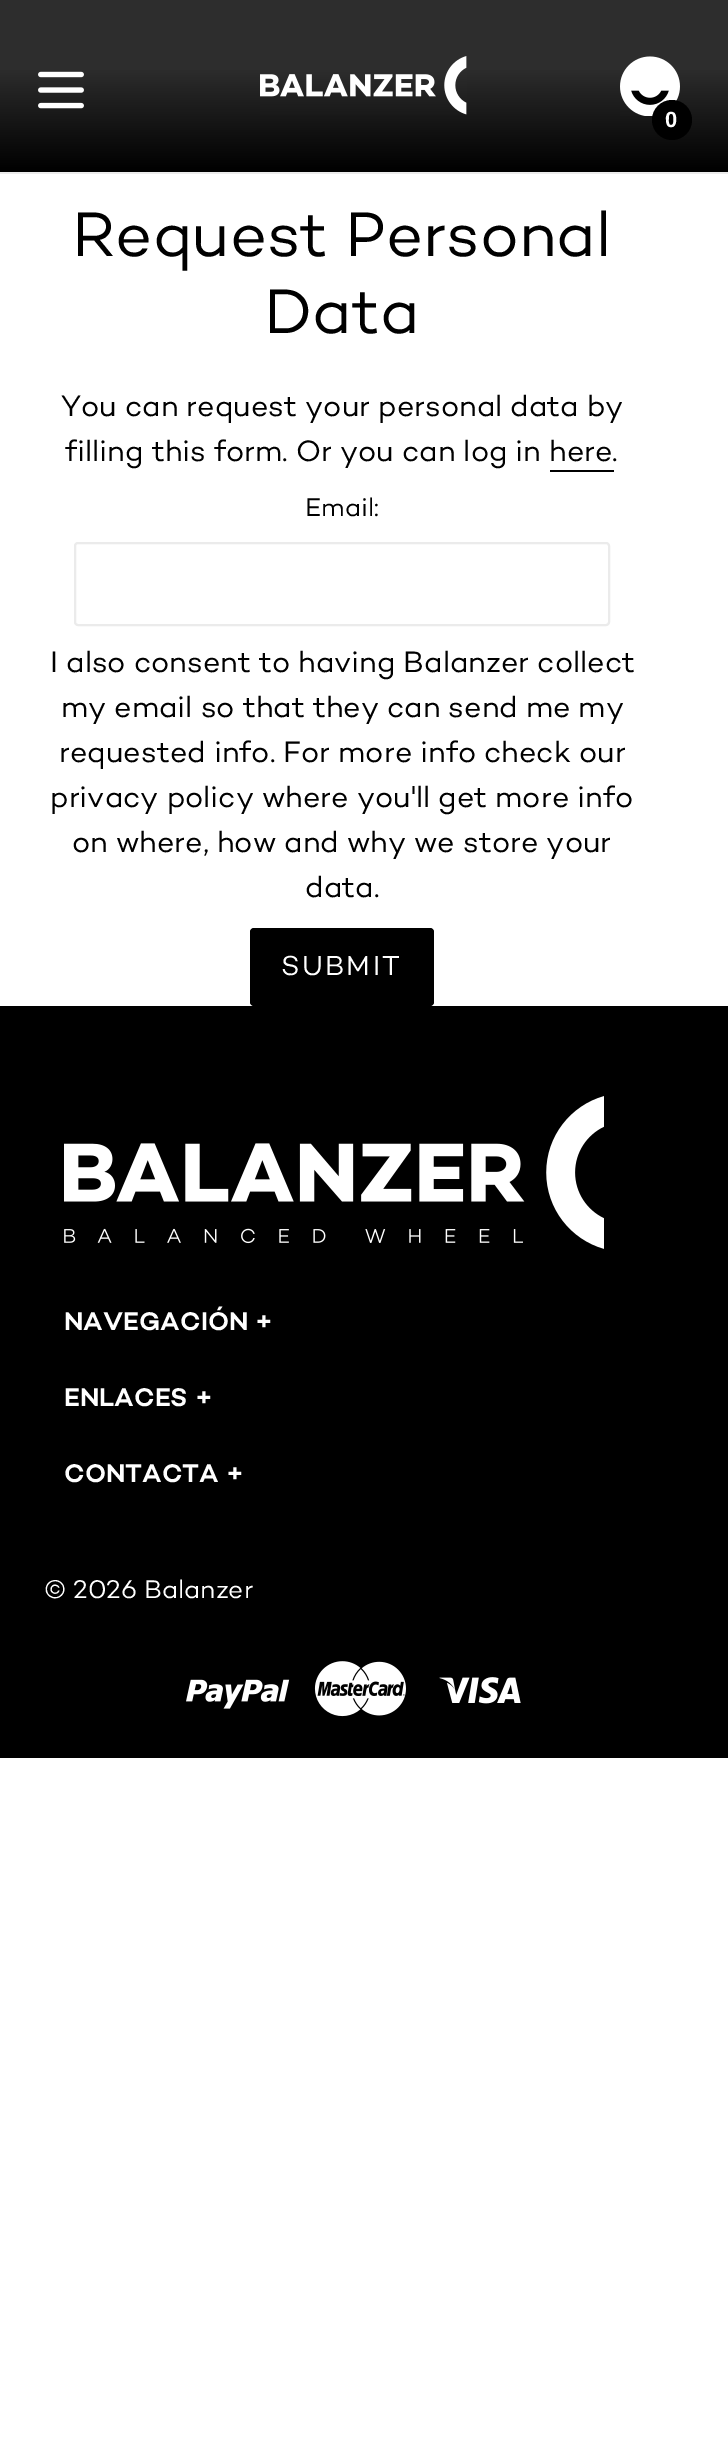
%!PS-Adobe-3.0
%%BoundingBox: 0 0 728 2462
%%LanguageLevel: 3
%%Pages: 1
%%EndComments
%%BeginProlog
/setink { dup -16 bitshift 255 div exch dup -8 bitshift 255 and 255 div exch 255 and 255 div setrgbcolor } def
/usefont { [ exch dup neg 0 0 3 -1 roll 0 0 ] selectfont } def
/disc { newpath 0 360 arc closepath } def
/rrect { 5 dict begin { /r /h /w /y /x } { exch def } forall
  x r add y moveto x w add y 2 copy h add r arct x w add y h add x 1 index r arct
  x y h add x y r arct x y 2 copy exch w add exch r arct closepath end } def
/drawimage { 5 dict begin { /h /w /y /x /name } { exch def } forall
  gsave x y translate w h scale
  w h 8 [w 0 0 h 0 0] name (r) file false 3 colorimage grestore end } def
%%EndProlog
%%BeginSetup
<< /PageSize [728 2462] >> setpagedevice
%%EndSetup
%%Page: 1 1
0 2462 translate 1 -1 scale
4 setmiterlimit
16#FFFFFF setink
0 0 728 2462 rectfill
gsave 0 0 moveto 728 0 lineto 728 172 lineto 0 172 lineto closepath clip newpath
<< /ShadingType 2 /ColorSpace /DeviceRGB /Coords [364 0 364 172] /Extend [true true] /Function << /FunctionType 3 /Domain [0 1] /Functions [<< /FunctionType 2 /Domain [0 1] /C0 [0.176 0.176 0.176] /C1 [0.176 0.176 0.176] /N 1 >> << /FunctionType 2 /Domain [0 1] /C0 [0.176 0.176 0.176] /C1 [0 0 0] /N 1 >>] /Bounds [0.4] /Encode [0 1 0 1] >> >> shfill grestore
(img1.raw) 38 71 46 38 drawimage
(img2.raw) 260 56 207 59 drawimage
(img3.raw) 620 56 60 60 drawimage
16#000000 setink
672 120 20 disc fill
/LiberationSans-Bold 22 usefont
16#FFFFFF setink
665 127 moveto 2 0 (0) ashow
16#EBEBEB setink
0 172 728 2 rectfill
/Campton-Regular 64 usefont
16#000000 setink
72 256 moveto (Request Personal) show
264 333 moveto (Data) show
/Campton-Regular 30 usefont
61 416 moveto (You can request your personal data by) show
65 461 moveto (filling this form. Or you can log in here.) show
550 470 64 2 rectfill
/Campton-Regular 26 usefont
305 516 moveto (Email:) show
16#EBEBEB setink
2 setlinewidth
75 543 534 82 3 rrect stroke
/Campton-Regular 30 usefont
16#000000 setink
[
    [(I also consent to having Balanzer collect) 50 672]
    [(my email so that they can send me my) 61 717]
    [(requested info. For more info check our) 59 762]
    [(privacy policy where you'll get more info) 50 807]
    [(on where, how and why we store your) 72 852]
    [(data.) 305 897]
] { aload pop moveto show } forall
250 928 184 78 4 rrect fill
/Campton-Regular 28 usefont
16#FFFFFF setink
281 975 moveto 2.25 0 (SUBMIT) ashow
16#000000 setink
0 1006 728 752 rectfill
(img4.raw) 64 1096 540 153 drawimage
/Campton-SemiBold 26 usefont
16#FFFFFF setink
[
    [(NAVEGACIÓN +) 64 1330]
    [(ENLACES +) 64 1406]
    [(CONTACTA +) 64 1482]
] { aload pop moveto show } forall
/Campton-Regular 26 usefont
44 1598 moveto (© 2026 Balanzer) show
(img5.raw) 186 1679 104 30 drawimage
(img6.raw) 314 1661 92 56 drawimage
(img7.raw) 439 1677 82 27 drawimage
showpage
%%EOF
